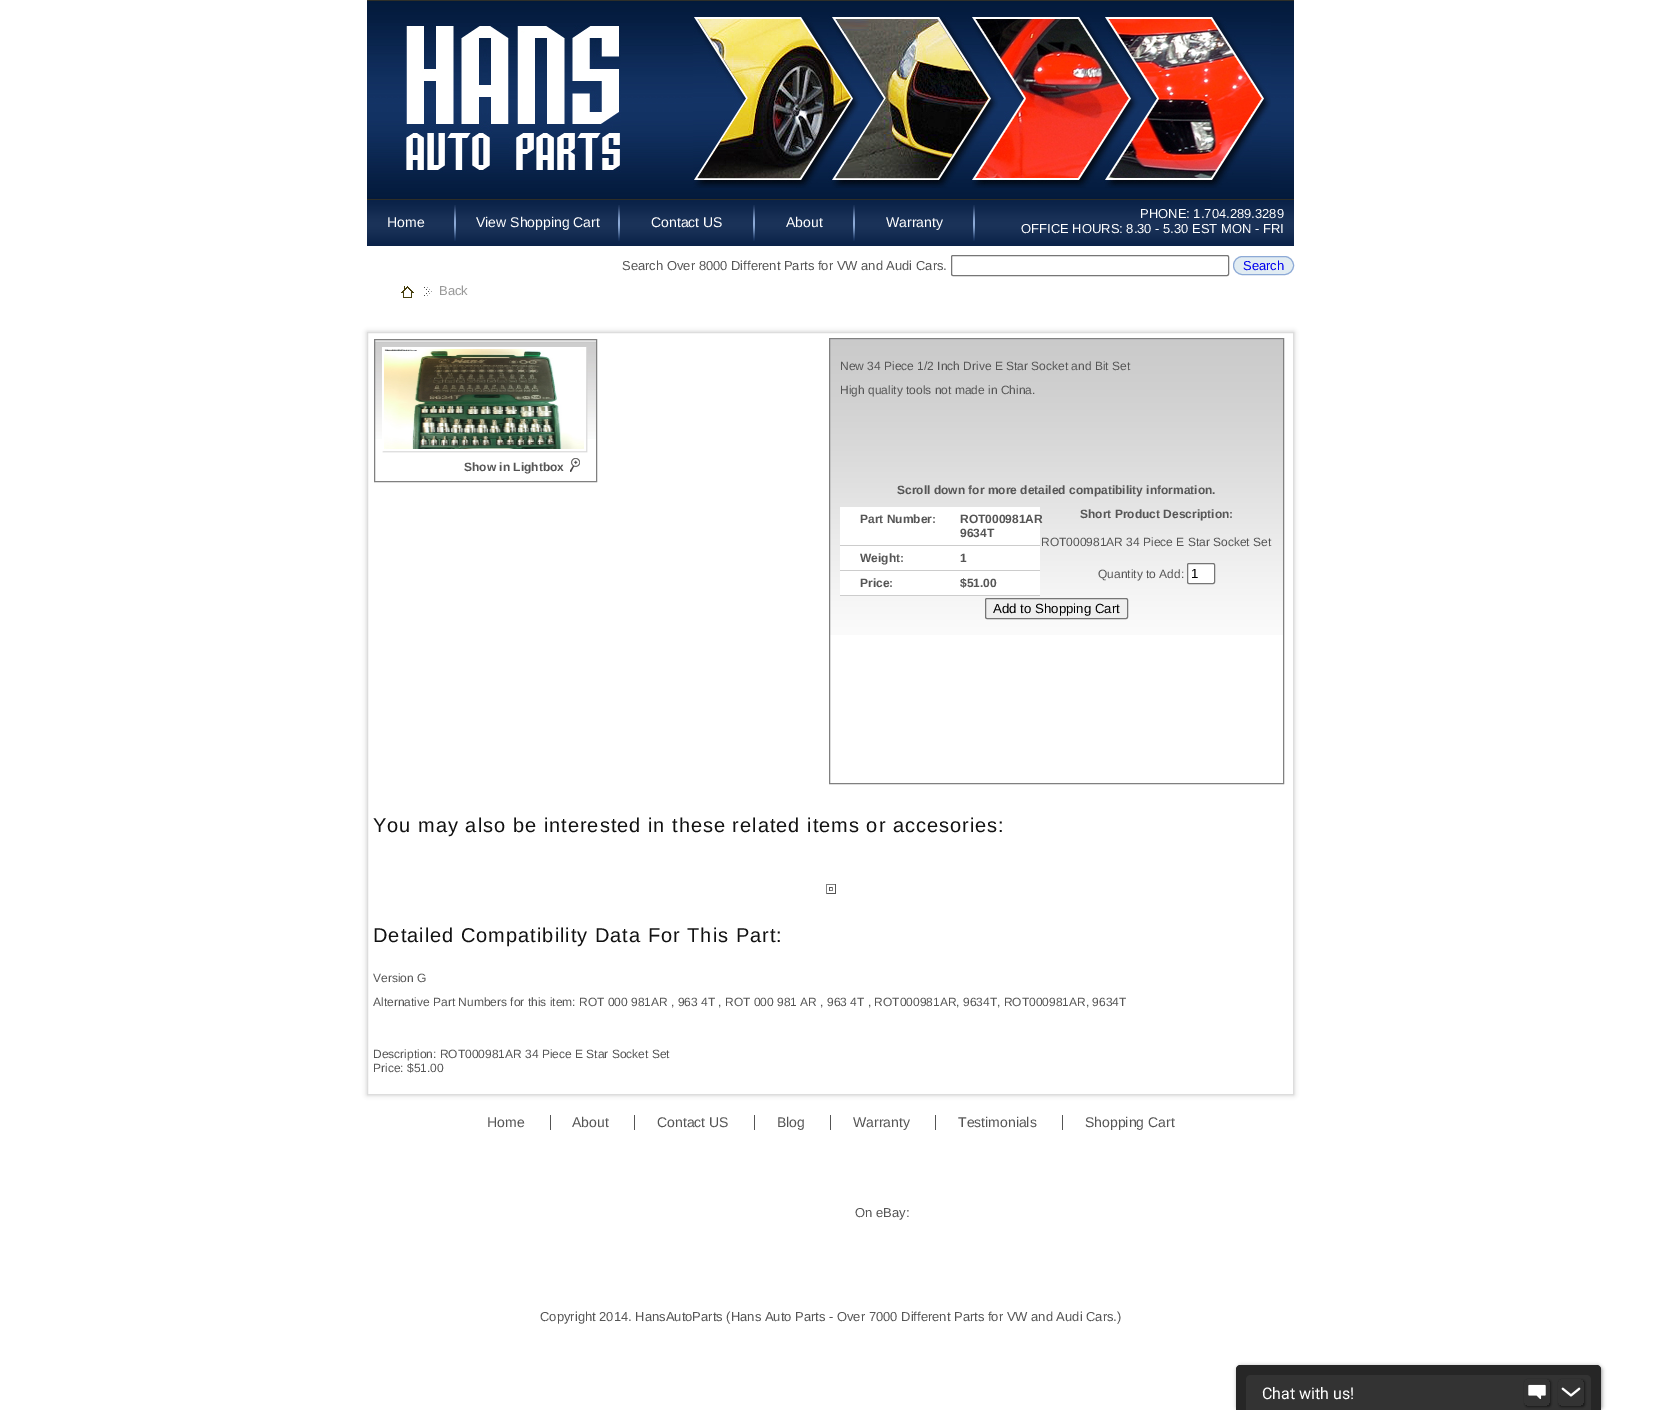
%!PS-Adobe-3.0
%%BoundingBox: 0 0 1661 1410
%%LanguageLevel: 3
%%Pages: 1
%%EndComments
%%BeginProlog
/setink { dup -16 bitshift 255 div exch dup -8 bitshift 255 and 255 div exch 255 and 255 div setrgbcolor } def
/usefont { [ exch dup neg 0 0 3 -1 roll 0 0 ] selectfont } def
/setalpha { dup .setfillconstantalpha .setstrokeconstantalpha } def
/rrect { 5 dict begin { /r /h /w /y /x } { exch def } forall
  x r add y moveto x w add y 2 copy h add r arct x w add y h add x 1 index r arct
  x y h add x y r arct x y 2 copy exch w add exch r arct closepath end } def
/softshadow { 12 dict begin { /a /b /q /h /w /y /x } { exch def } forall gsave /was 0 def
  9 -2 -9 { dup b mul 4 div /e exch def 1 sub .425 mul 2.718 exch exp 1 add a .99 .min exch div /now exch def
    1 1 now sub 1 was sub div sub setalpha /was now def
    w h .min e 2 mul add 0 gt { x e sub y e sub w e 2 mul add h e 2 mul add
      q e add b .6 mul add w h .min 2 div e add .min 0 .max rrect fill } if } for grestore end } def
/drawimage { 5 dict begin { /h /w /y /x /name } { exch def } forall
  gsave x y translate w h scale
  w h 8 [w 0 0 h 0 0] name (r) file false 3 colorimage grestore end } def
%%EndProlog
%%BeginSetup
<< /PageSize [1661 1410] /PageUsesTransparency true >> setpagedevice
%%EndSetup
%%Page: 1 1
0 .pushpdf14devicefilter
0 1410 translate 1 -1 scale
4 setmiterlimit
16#FFFFFF setink
0 0 1661 1410 rectfill
(img1.raw) 367 0 927 246 drawimage
(img2.raw) 406 25 215 147 drawimage
(img3.raw) 693 15 578 173 drawimage
(img4.raw) 454 205 2 36 drawimage
/LiberationSans-Regular 14 usefont
387 227 moveto (Home) show
(img4.raw) 618 205 2 36 drawimage
476 227 moveto (View Shopping Cart) show
(img4.raw) 753 205 2 36 drawimage
651 227 moveto (Contact US) show
(img4.raw) 853 205 2 36 drawimage
786 227 moveto (About) show
(img4.raw) 973 205 2 36 drawimage
886 227 moveto (Warranty) show
/LiberationSans-Regular 13 usefont
1140 218 moveto (PHONE: 1.704.289.3289) show
1021 233 moveto (OFFICE HOURS: 8.30 - 5.30 EST MON - FRI) show
16#555555 setink
622 270 moveto (Search Over 8000 Different Parts for VW and Audi Cars.) show
16#767676 setink
951.5 255.5 277 20 1.5 rrect stroke
16#E1ECF2 setink
1233.5 256.5 60 18 9 rrect gsave fill grestore
16#8DAAD6 setink
stroke
16#0000EE setink
1243 270 moveto (Search) show
(img5.raw) 401 286 13 12 drawimage
(img6.raw) 424 287 8 9 drawimage
16#999999 setink
439 295 moveto (Back) show
gsave
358 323 moveto 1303 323 lineto 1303 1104 lineto 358 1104 lineto closepath 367 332 moveto 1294 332 lineto 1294 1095 lineto 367 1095 lineto closepath eoclip newpath
16#CCCCCC setink
367 332 927 763 0 2.5 1 softshadow
grestore
16#DDDDDD setink
367.5 332.5 926 762 rectstroke
(img7.raw) 375 340 221 99 drawimage
16#808080 setink
374.5 339.5 222 142 rectstroke
16#CCCCCC setink
383 348 204 104 0 0.5 1 softshadow
16#FFFFFF setink
2 setlinewidth
383 348 202 102 rectstroke
(img8.raw) 384 349 200 100 drawimage
(img9.raw) 570 458 10 14 drawimage
/LiberationSans-Bold 12 usefont
16#555555 setink
464 471 moveto (Show in Lightbox) show
(img10.raw) 830 339 453 296 drawimage
16#808080 setink
1 setlinewidth
829.5 338.5 454 445 rectstroke
/LiberationSans-Regular 12 usefont
16#555555 setink
840 370 moveto (New 34 Piece 1/2 Inch Drive E Star Socket and Bit Set) show
840 394 moveto (High quality tools not made in China.) show
/LiberationSans-Bold 12 usefont
897 494 moveto (Scroll down for more detailed compatibility information.) show
16#FFFFFF setink
840 507 200 88 rectfill
16#CCCCCC setink
840 545 200 1 rectfill
16#555555 setink
[
    [(Part Number:) 860 523]
    [(ROT000981AR) 960 523]
    [(9634T) 960 537]
] { aload pop moveto show } forall
16#CCCCCC setink
840 570 200 1 rectfill
16#555555 setink
860 562 moveto (Weight:) show
960 562 moveto (1) show
16#CCCCCC setink
840 595 200 1 rectfill
16#555555 setink
[
    [(Price:) 860 587]
    [($51.00) 960 587]
    [(Short Product Description:) 1080 518]
] { aload pop moveto show } forall
/LiberationSans-Regular 12 usefont
1041 546 moveto (ROT000981AR 34 Piece E Star Socket Set) show
1098 578 moveto (Quantity to Add:) show
16#FFFFFF setink
1187.5 563.5 27 20 1.5 rrect gsave fill grestore
16#767676 setink
stroke
/LiberationSans-Regular 13.25 usefont
16#000000 setink
1191 578 moveto (1) show
16#EFEFEF setink
985.5 598.5 142 20 1.5 rrect gsave fill grestore
16#767676 setink
stroke
16#000000 setink
993 613 moveto (Add to Shopping Cart) show
/LiberationSans-Regular 20 usefont
16#111111 setink
373 832 moveto 1 0 (You may also be interested in these related items or accesories:) ashow
[
    [826 884 10 1 16#808080]
    [835 884 1 10 16#555555]
    [826 893 10 1 16#555555]
    [826 884 1 10 16#808080]
    [829 887 4 1 16#555555]
    [832 887 1 4 16#808080]
    [829 890 4 1 16#808080]
    [829 887 1 4 16#555555]
] { aload pop setink rectfill } forall
16#111111 setink
373 942 moveto 1 0 (Detailed Compatibility Data For This Part:) ashow
/LiberationSans-Regular 12 usefont
16#555555 setink
[
    [(Version G) 373 982]
    [(Alternative Part Numbers for this item: ROT 000 981AR , 963 4T , ROT 000 981 AR , 963 4T , ROT000981AR, 9634T, ROT000981AR, 9634T) 373 1006]
    [(Description: ROT000981AR 34 Piece E Star Socket Set) 373 1058]
    [(Price: $51.00) 373 1072]
] { aload pop moveto show } forall
/LiberationSans-Regular 14 usefont
487 1127 moveto (Home) show
550 1115 1 15 rectfill
572 1127 moveto (About) show
634 1115 1 15 rectfill
657 1127 moveto (Contact US) show
754 1115 1 15 rectfill
777 1127 moveto (Blog) show
830 1115 1 15 rectfill
853 1127 moveto (Warranty) show
935 1115 1 15 rectfill
958 1127 moveto (Testimonials) show
1062 1115 1 15 rectfill
1085 1127 moveto (Shopping Cart) show
/LiberationSans-Regular 13 usefont
855 1217 moveto (On eBay:) show
540 1321 moveto (Copyright 2014. HansAutoParts \(Hans Auto Parts - Over 7000 Different Parts for VW and Audi Cars.\)) show
16#000000 setink
1237 1366 365 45 5 2 0.4 softshadow
16#262626 setink
1241 1365 moveto 1596 1365 lineto 1599 1365 1601 1367 1601 1370 curveto 1601 1410 lineto 1236 1410 lineto 1236 1370 lineto 1236 1367 1238 1365 1241 1365 curveto closepath fill
1241 1365 moveto 1596 1365 lineto 1599 1365 1601 1367 1601 1370 curveto 1601 1410 lineto 1236 1410 lineto 1236 1370 lineto 1236 1367 1238 1365 1241 1365 curveto closepath 1246 1375 moveto 1591 1375 lineto 1591 1410 lineto 1246 1410 lineto closepath eofill
16#333333 setink
1251 1375 moveto 1586 1375 lineto 1589 1375 1591 1377 1591 1380 curveto 1591 1410 lineto 1246 1410 lineto 1246 1380 lineto 1246 1377 1248 1375 1251 1375 curveto closepath fill
/Roboto-Regular 16 usefont
16#FFFFFF setink
1262 1399 moveto (Chat with us!) show
gsave
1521 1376 moveto 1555 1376 lineto 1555 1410 lineto 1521 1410 lineto closepath 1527 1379 moveto 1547 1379 lineto 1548.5 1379 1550 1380.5 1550 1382 curveto 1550 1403 lineto 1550 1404.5 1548.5 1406 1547 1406 curveto 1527 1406 lineto 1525.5 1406 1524 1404.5 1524 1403 curveto 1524 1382 lineto 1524 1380.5 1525.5 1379 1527 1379 curveto closepath eoclip newpath
16#000000 setink
1525 1380 26 27 3 1 0.5 softshadow
grestore
(img11.raw) 1528 1384 18 15 drawimage
gsave
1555 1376 moveto 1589 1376 lineto 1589 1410 lineto 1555 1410 lineto closepath 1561 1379 moveto 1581 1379 lineto 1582.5 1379 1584 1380.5 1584 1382 curveto 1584 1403 lineto 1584 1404.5 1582.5 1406 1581 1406 curveto 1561 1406 lineto 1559.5 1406 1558 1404.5 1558 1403 curveto 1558 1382 lineto 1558 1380.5 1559.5 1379 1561 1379 curveto closepath eoclip newpath
16#000000 setink
1559 1380 26 27 3 1 0.5 softshadow
grestore
(img12.raw) 1561 1387 20 10 drawimage
.poppdf14devicefilter showpage
%%EOF
